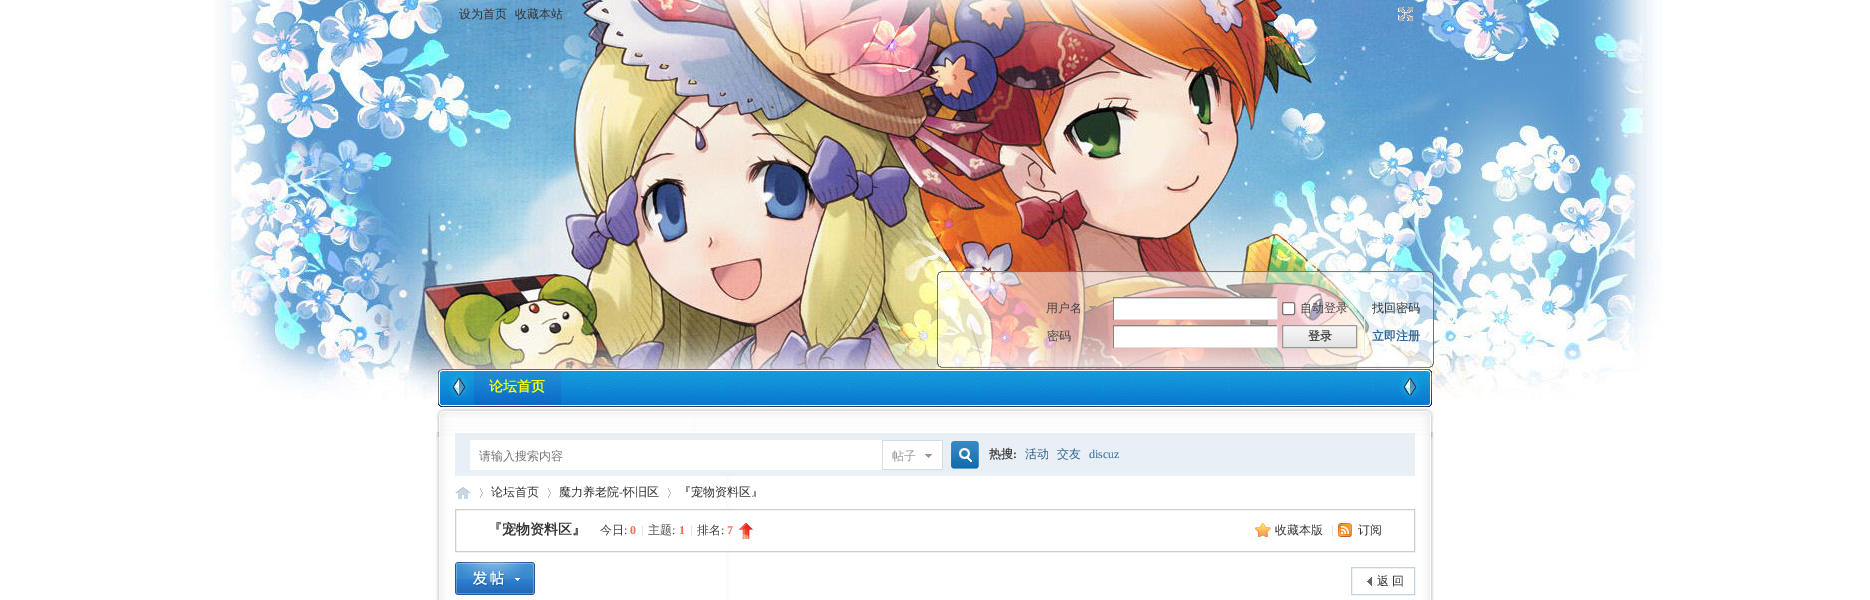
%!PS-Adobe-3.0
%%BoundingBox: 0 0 1870 600
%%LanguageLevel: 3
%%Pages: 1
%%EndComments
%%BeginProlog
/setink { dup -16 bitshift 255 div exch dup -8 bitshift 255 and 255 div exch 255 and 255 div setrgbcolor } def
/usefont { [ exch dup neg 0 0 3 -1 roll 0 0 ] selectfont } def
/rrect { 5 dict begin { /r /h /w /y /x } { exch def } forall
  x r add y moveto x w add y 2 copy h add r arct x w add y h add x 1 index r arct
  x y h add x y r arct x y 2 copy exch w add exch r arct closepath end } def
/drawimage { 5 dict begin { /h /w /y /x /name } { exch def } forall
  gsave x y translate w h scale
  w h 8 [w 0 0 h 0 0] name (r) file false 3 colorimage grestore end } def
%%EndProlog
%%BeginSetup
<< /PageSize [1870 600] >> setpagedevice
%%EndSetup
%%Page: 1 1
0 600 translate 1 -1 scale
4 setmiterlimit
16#FFFFFF setink
0 0 1870 600 rectfill
(img1.raw) 214 0 1448 399 drawimage
/WenQuanYiZenHei-Medium 12 usefont
16#333333 setink
459 18 moveto (设为首页) show
515 18 moveto (收藏本站) show
(img2.raw) 1398 7 15 14 drawimage
(img3.raw) 937 271 497 97 drawimage
(img4.raw) 1089 306 7 4 drawimage
16#444444 setink
1046 312 moveto (用户名) show
[
    [1114 299 163 20 16#FFFFFF]
    [1113 298 165 1 16#D4D4D4]
    [1113 297 165 1 16#848484]
    [1277 297 1 23 16#E0E0E0]
    [1113 319 165 1 16#E0E0E0]
    [1113 297 1 23 16#848484]
] { aload pop setink rectfill } forall
16#FFFFFF setink
1282.5 302.5 12 12 1.5 rrect gsave fill grestore
16#767676 setink
stroke
16#444444 setink
1300 312 moveto (自动登录) show
16#333333 setink
1372 312 moveto (找回密码) show
16#444444 setink
1047 340 moveto (密码) show
[
    [1114 327 163 20 16#FFFFFF]
    [1113 326 165 1 16#D4D4D4]
    [1113 325 165 1 16#848484]
    [1277 325 1 23 16#E0E0E0]
    [1113 347 165 1 16#E0E0E0]
    [1113 325 1 23 16#848484]
    [1364 294 1 57 16#E5EDF2]
    [1282 348 75 1 16#E5E5E5]
] { aload pop setink rectfill } forall
(img5.raw) 1283 326 73 21 drawimage
16#999999 setink
1282.5 325.5 74 22 rectstroke
/WenQuanYiZenHei-Bold 12 usefont
16#444444 setink
1308 340 moveto (登录) show
16#336699 setink
1372 340 moveto (立即注册) show
(img6.raw) 438 369 994 38 drawimage
(img7.raw) 474 369 87 38 drawimage
/WenQuanYiZenHei-Bold 14 usefont
16#FFFF00 setink
489 391 moveto (论坛首页) show
(img9.raw) 436 432 998 168 drawimage
(img8.raw) 436 408 998 29 drawimage
[
    [455 433 960 43 16#E8EFF5]
    [693 432 2 1 16#FFFFFF]
    [470 440 412 30 16#FFFFFF]
] { aload pop setink rectfill } forall
(img10.raw) 951 441 28 28 drawimage
/WenQuanYiZenHei-Bold 12 usefont
16#444444 setink
989 458 moveto (热搜) show
/LiberationSerif-Bold 12 usefont
1013 458 moveto (:) show
/WenQuanYiZenHei-Medium 12 usefont
16#336699 setink
1025 458 moveto (活动) show
1057 458 moveto (交友) show
/LiberationSerif-Regular 12 usefont
1089 458 moveto (discuz) show
/WenQuanYiZenHei-Medium 12 usefont
16#757575 setink
479 460 moveto (请输入搜索内容) show
(img11.raw) 882 440 61 30 drawimage
16#999999 setink
892 460 moveto (帖子) show
(img12.raw) 455 487 16 12 drawimage
(img13.raw) 480 488 3 10 drawimage
16#333333 setink
491 496 moveto (论坛首页) show
(img13.raw) 548 488 3 10 drawimage
559 496 moveto (魔力养老院) show
/LiberationSerif-Regular 12 usefont
619 496 moveto (-) show
/WenQuanYiZenHei-Medium 12 usefont
623 496 moveto (怀旧区) show
(img13.raw) 668 488 3 10 drawimage
679 496 moveto (『宠物资料区』) show
16#FFFFFF setink
726 510 3 41 rectfill
16#CDCDCD setink
455.5 509.5 959 42 rectstroke
/WenQuanYiZenHei-Bold 14 usefont
16#333333 setink
488 534 moveto (『宠物资料区』) show
/WenQuanYiZenHei-Medium 12 usefont
16#444444 setink
600 534 moveto (今日) show
/LiberationSerif-Regular 12 usefont
624 534 moveto (:) show
/LiberationSerif-Bold 12 usefont
16#F26C4F setink
630 534 moveto (0) show
/LiberationSerif-Regular 12 usefont
16#CCCCCC setink
641 534 moveto (|) show
/WenQuanYiZenHei-Medium 12 usefont
16#444444 setink
648 534 moveto (主题) show
/LiberationSerif-Regular 12 usefont
672 534 moveto (:) show
/LiberationSerif-Bold 12 usefont
16#F26C4F setink
679 534 moveto (1) show
/LiberationSerif-Regular 12 usefont
16#CCCCCC setink
690 534 moveto (|) show
/WenQuanYiZenHei-Medium 12 usefont
16#444444 setink
697 534 moveto (排名) show
/LiberationSerif-Regular 12 usefont
721 534 moveto (:) show
/LiberationSerif-Bold 12 usefont
16#F26C4F setink
727 534 moveto (7) show
(img14.raw) 739 523 14 16 drawimage
(img15.raw) 1255 523 16 14 drawimage
/WenQuanYiZenHei-Medium 12 usefont
16#333333 setink
1275 534 moveto (收藏本版) show
/LiberationSerif-Regular 12 usefont
16#CCCCCC setink
1331 534 moveto (|) show
(img16.raw) 1338 523 14 14 drawimage
/WenQuanYiZenHei-Medium 12 usefont
16#333333 setink
1358 534 moveto (订阅) show
(img17.raw) 455 562 80 33 drawimage
(img18.raw) 1367 577 5 9 drawimage
16#C2D5E3 setink
1351.5 567.5 63 27 rectstroke
16#333333 setink
1377 585 moveto (返) show
1392 585 moveto (回) show
showpage
%%EOF
